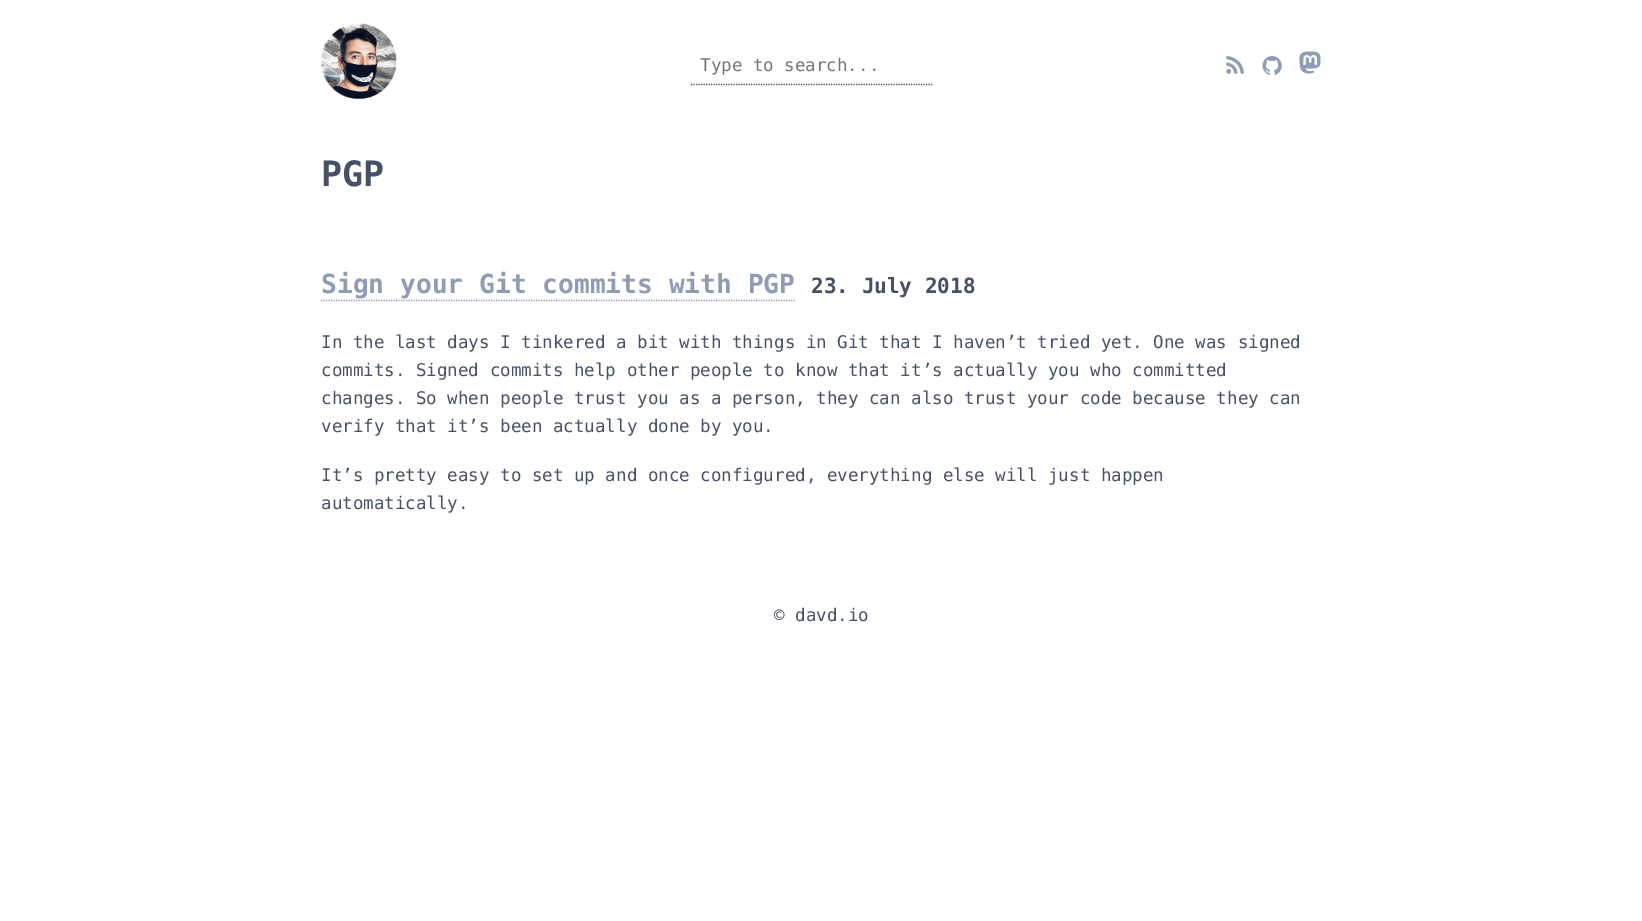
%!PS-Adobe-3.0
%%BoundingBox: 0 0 1642 921
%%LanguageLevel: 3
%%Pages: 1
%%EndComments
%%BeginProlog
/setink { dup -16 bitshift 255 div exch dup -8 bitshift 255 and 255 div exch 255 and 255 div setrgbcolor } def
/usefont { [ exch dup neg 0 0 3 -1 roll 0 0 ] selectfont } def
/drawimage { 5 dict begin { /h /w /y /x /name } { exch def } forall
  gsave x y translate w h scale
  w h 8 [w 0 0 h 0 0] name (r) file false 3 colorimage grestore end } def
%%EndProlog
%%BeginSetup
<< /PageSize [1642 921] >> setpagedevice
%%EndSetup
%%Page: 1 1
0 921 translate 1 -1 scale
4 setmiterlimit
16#FFFFFF setink
0 0 1642 921 rectfill
(img1.raw) 321 23 76 76 drawimage
16#445166 setink
1.2 setlinewidth
[1.25 1.25] 0 setdash
691 84.5 moveto 932.5 84.5 lineto stroke
/DejaVuSansMono-Regular 17.5 usefont
16#757575 setink
700 71 moveto (Type to search...) show
(img2.raw) 1226 56 18 18 drawimage
(img3.raw) 1262 56 20 19 drawimage
(img4.raw) 1299 51 22 23 drawimage
/DejaVuSansMono-Bold 35 usefont
16#445166 setink
321 186 moveto (PGP) show
/DejaVuSansMono-Bold 26.25 usefont
16#8F9DB4 setink
321 293 moveto (Sign your Git commits with PGP) show
321 300.5 moveto 795 300.5 lineto stroke
/DejaVuSansMono-Bold 21 usefont
16#445166 setink
811 293 moveto (23. July 2018) show
/DejaVuSansMono-Regular 17.5 usefont
[
    [(In the last days I tinkered a bit with things in Git that I haven’t tried yet. One was signed) 321 348]
    [(commits. Signed commits help other people to know that it’s actually you who committed) 321 376]
    [(changes. So when people trust you as a person, they can also trust your code because they can) 321 404]
    [(verify that it’s been actually done by you.) 321 432]
    [(It’s pretty easy to set up and once configured, everything else will just happen) 321 481]
    [(automatically.) 321 509]
    [(© davd.io) 774 621]
] { aload pop moveto show } forall
showpage
%%EOF
